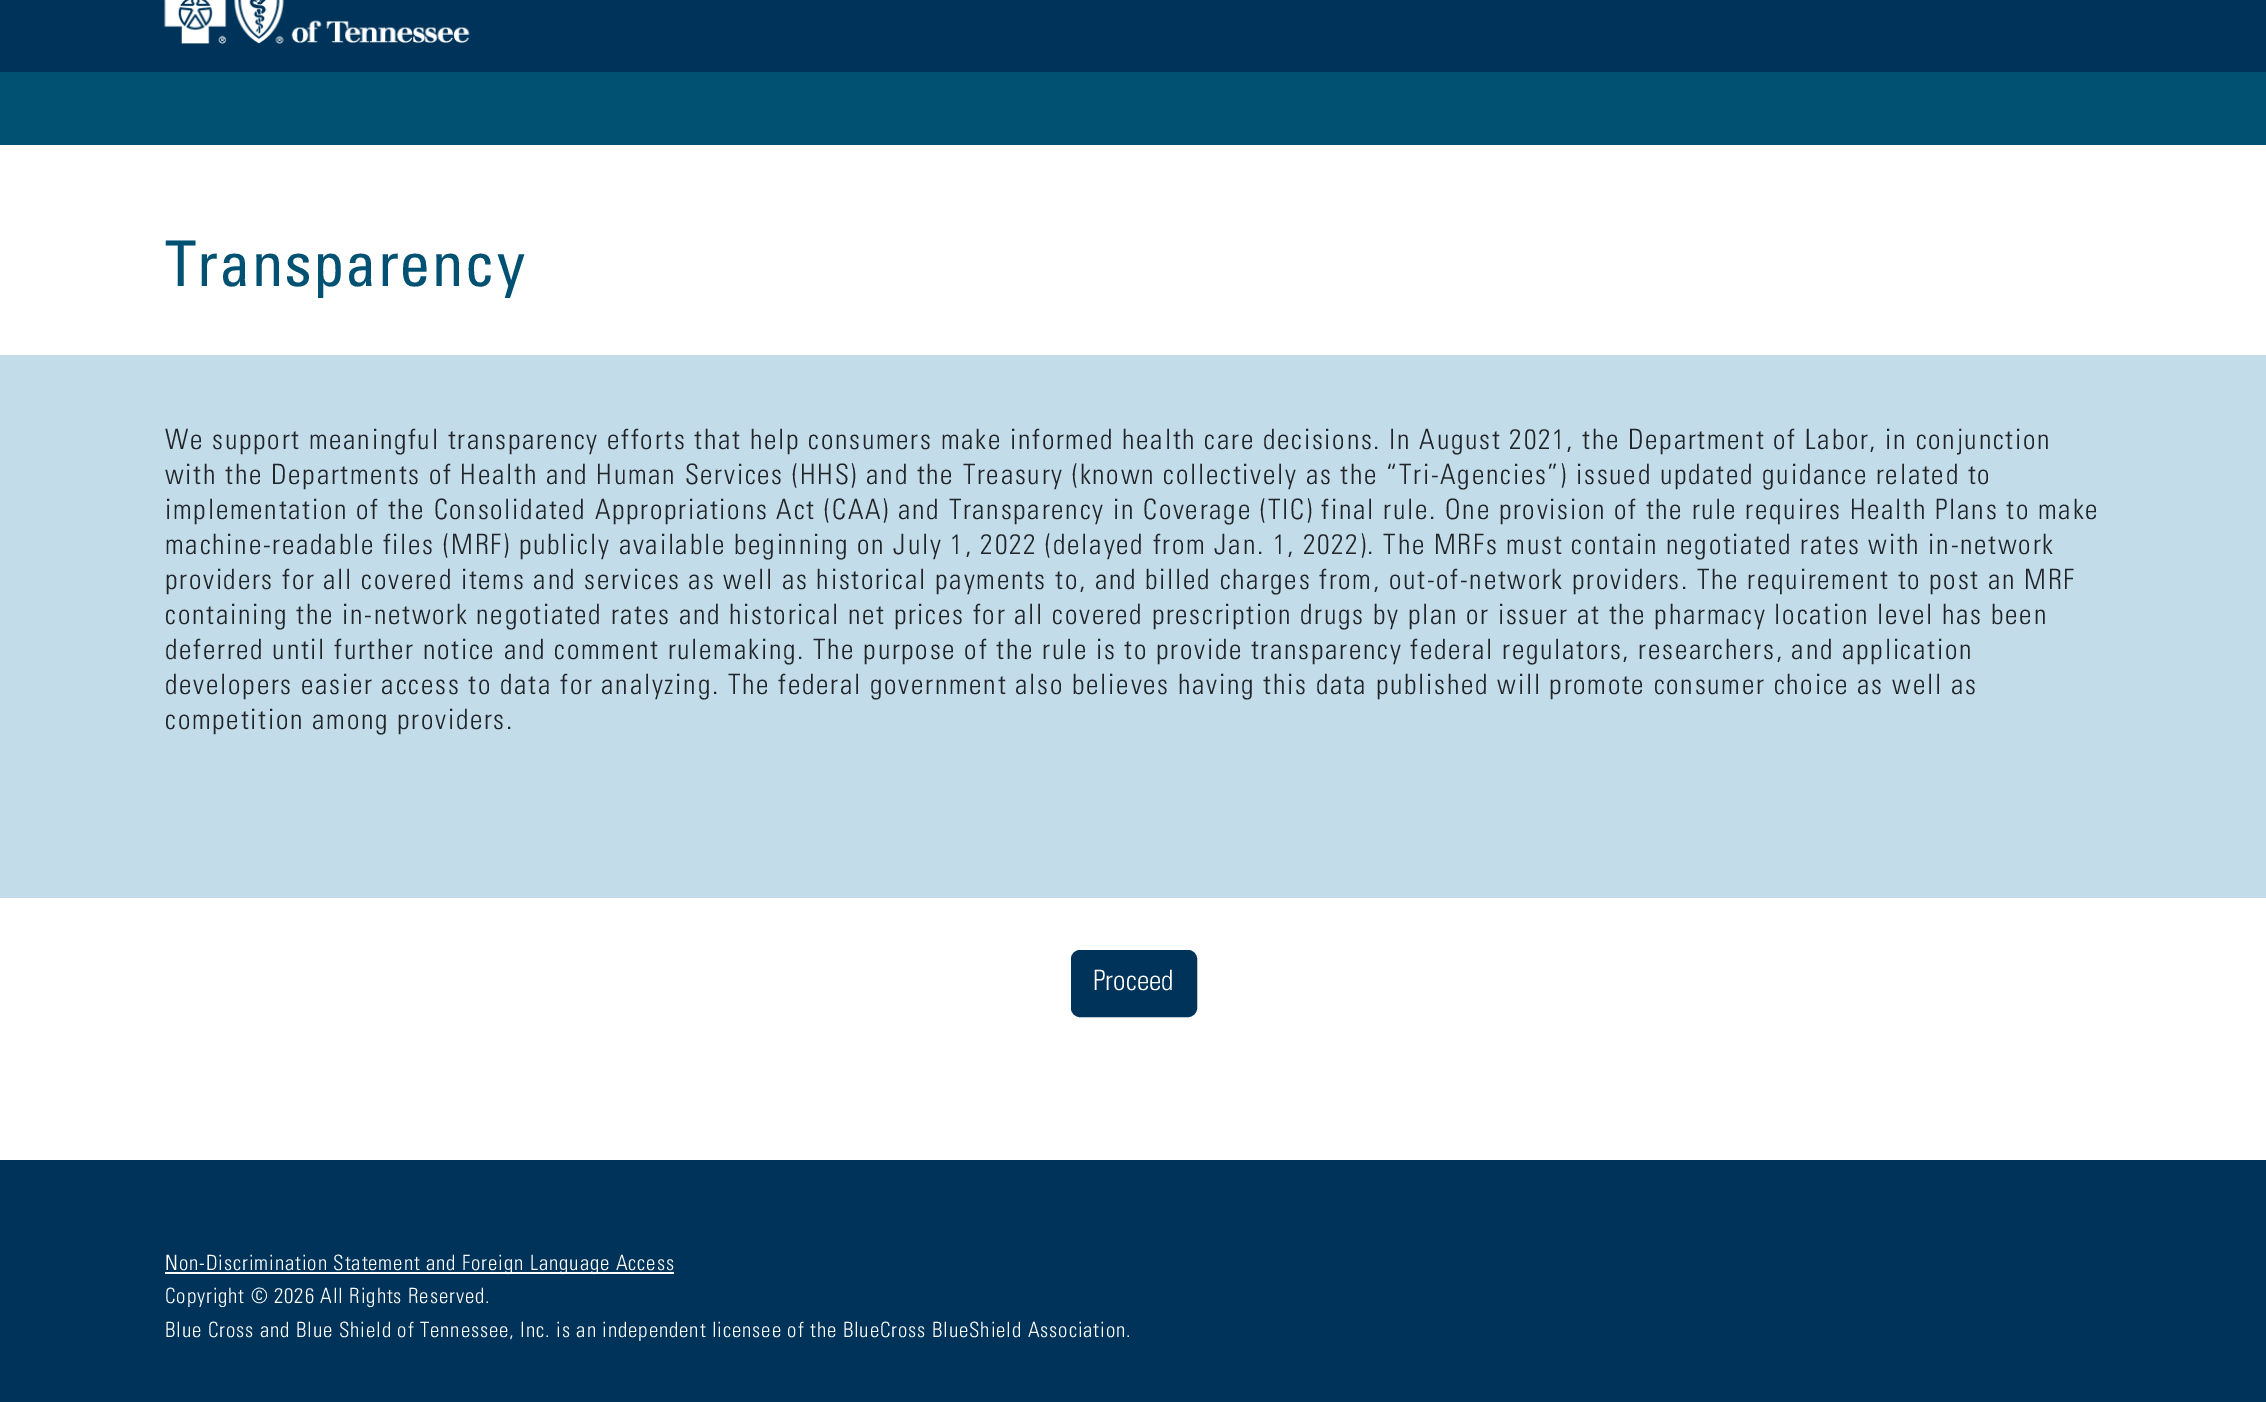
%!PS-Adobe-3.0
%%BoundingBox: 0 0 2266 1402
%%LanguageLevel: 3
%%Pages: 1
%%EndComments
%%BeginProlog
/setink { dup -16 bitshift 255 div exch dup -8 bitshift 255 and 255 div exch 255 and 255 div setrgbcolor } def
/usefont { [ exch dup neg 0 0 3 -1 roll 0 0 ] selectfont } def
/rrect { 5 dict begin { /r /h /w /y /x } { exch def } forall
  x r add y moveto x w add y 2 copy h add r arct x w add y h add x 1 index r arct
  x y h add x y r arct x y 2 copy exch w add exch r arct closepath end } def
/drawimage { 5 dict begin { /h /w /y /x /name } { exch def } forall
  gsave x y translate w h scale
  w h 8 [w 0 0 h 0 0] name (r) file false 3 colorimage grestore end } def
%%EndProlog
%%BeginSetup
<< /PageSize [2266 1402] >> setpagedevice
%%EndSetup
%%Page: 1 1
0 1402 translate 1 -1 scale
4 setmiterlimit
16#003359 setink
0 0 2266 1402 rectfill
(img1.raw) 164 0 306 44 drawimage
16#005172 setink
0 72 2266 73 rectfill
16#FFFFFF setink
0 145 2266 1015 rectfill
/Univers-Regular 63 usefont
16#005172 setink
165 286 moveto 0.88 0 (Transparency) ashow
16#C3DCE9 setink
0 355 2266 543 rectfill
/Univers-Light 28 usefont
16#212529 setink
165 449 moveto 1.75 0 (We support meaningful transparency efforts that help consumers make informed health care decisions. In August 2021, the Department of Labor, in conjunction) ashow
165 484 moveto 1.75 0 (with the Departments of Health and Human Services \(HHS\) and the Treasury \(known collectively as the “Tri-Agencies”\) issued updated guidance related to) ashow
165 519 moveto 1.75 0 (implementation of the Consolidated Appropriations Act \(CAA\) and Transparency in Coverage \(TIC\) final rule. One provision of the rule requires Health Plans to make) ashow
165 554 moveto 1.75 0 (machine-readable files \(MRF\) publicly available beginning on July 1, 2022 \(delayed from Jan. 1, 2022\). The MRFs must contain negotiated rates with in-network) ashow
165 589 moveto 1.75 0 (providers for all covered items and services as well as historical payments to, and billed charges from, out-of-network providers. The requirement to post an MRF) ashow
165 624 moveto 1.75 0 (containing the in-network negotiated rates and historical net prices for all covered prescription drugs by plan or issuer at the pharmacy location level has been) ashow
165 659 moveto 1.75 0 (deferred until further notice and comment rulemaking. The purpose of the rule is to provide transparency federal regulators, researchers, and application) ashow
165 694 moveto 1.75 0 (developers easier access to data for analyzing. The federal government also believes having this data published will promote consumer choice as well as) ashow
165 729 moveto 1.75 0 (competition among providers.) ashow
16#003359 setink
1072 951 124 65 8 rrect gsave fill grestore
2 setlinewidth
stroke
16#FFFFFF setink
1093 990 moveto (Proceed) show
165 1272 509 2 rectfill
/Univers-Light 21 usefont
165 1270 moveto 0.88 0 (Non-Discrimination Statement and Foreign Language Access) ashow
165 1303 moveto 0.88 0 (Copyright © 2026 All Rights Reserved.) ashow
165 1337 moveto 0.88 0 (Blue Cross and Blue Shield of Tennessee, Inc. is an independent licensee of the BlueCross BlueShield Association.) ashow
showpage
%%EOF
